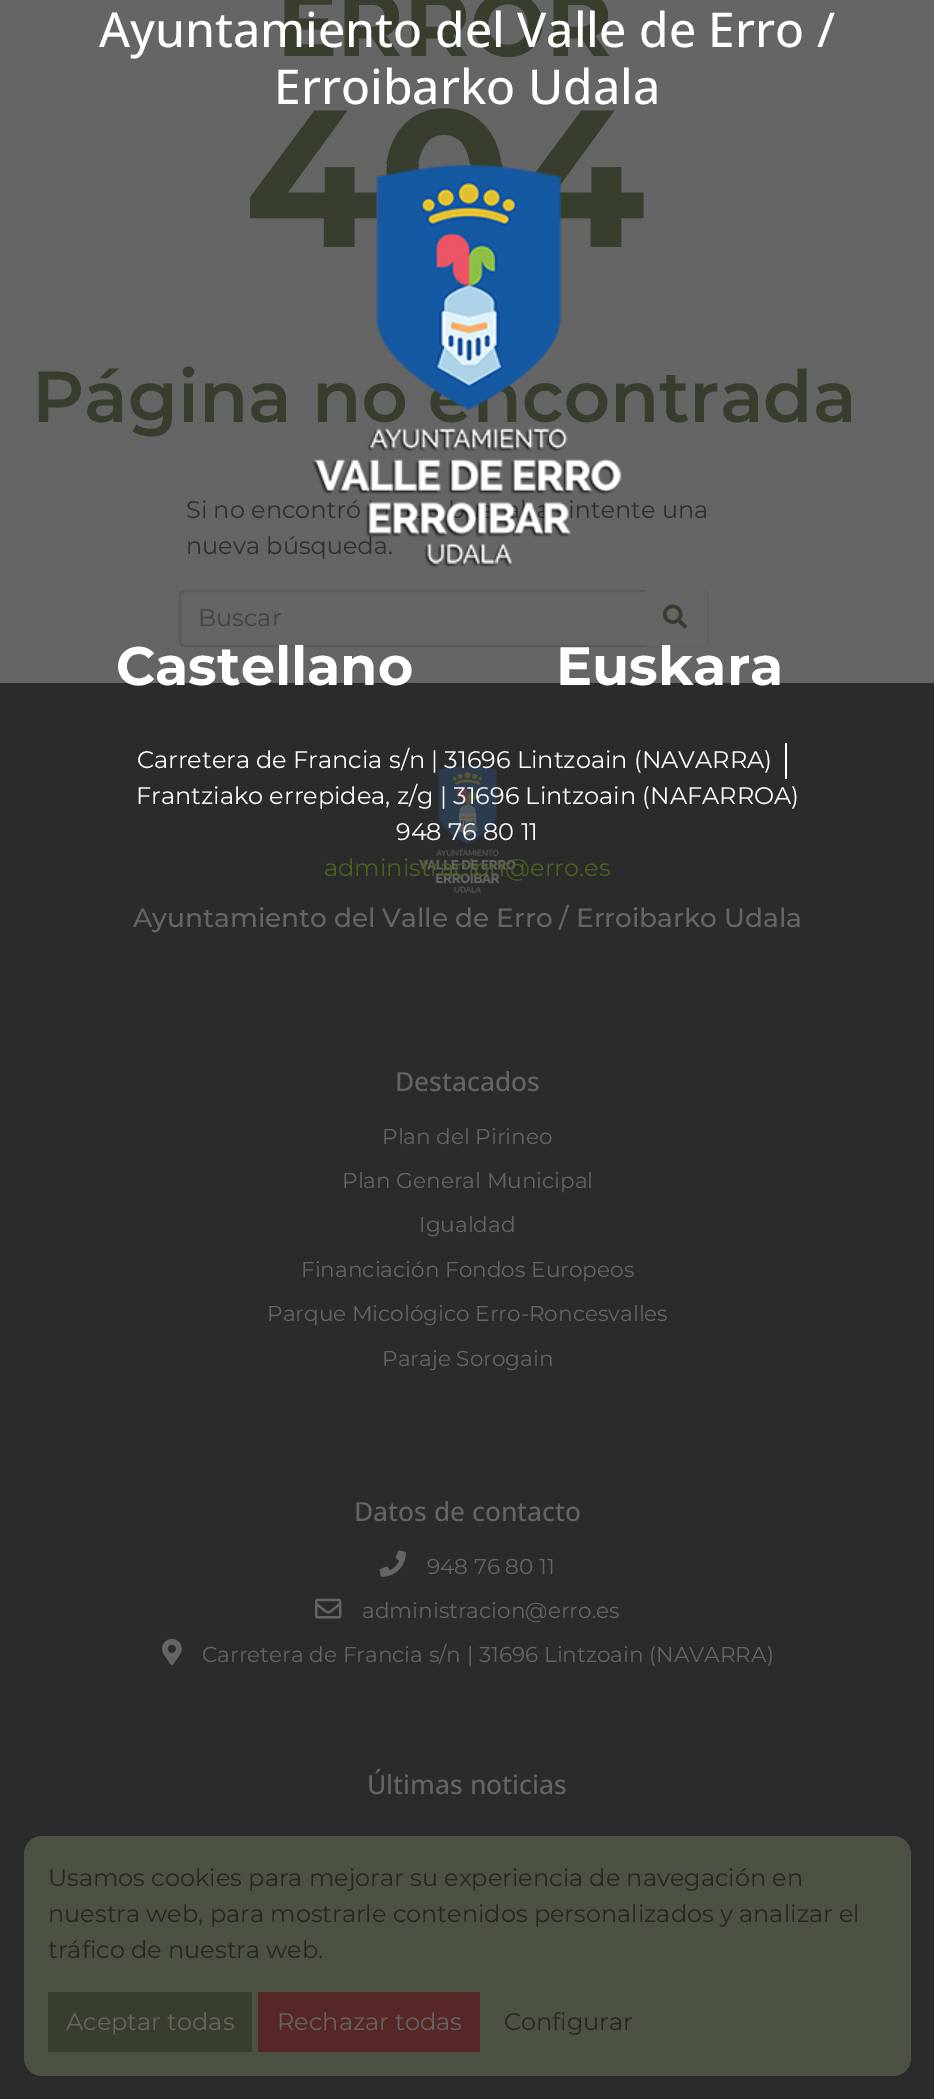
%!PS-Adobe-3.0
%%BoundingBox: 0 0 934 2099
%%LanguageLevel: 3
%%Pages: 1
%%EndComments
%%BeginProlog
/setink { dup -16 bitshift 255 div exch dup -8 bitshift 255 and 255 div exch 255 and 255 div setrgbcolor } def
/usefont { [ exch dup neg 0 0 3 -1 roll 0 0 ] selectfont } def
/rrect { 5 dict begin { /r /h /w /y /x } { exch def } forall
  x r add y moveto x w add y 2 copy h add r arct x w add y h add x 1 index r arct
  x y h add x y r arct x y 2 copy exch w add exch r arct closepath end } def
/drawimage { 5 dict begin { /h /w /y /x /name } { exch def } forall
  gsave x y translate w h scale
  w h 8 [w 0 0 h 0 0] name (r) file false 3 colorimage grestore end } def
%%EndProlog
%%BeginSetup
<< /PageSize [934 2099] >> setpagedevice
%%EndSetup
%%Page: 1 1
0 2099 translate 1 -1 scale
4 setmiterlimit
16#656565 setink
0 0 934 2099 rectfill
/Montserrat-Bold 90 usefont
16#373E2D setink
277 56 moveto (ERROR) show
/Montserrat-Bold 195 usefont
244 247 moveto (404) show
/Montserrat-SemiBold 72 usefont
32 422 moveto (Página no encontrada) show
/Montserrat-Regular 24 usefont
16#2E2F30 setink
[
    [(Si no encontró) 186 518]
    [(intente una) 568 518]
    [(nueva búsqueda.) 186 554]
] { aload pop moveto show } forall
16#595B5C setink
2 setlinewidth
180 591 527 55 5 rrect stroke
16#414345 setink
198 626 moveto (Buscar) show
16#656565 setink
645 591 61 55 5 rrect gsave fill grestore
stroke
(img1.raw) 663 604 24 25 drawimage
/OpenSans-Medium 48 usefont
16#FFFFFF setink
99 47 moveto (Ayuntamiento del Valle de Erro /) show
274 104 moveto (Erroibarko Udala) show
(img2.raw) 311 164 311 403 drawimage
16#2B2B2B setink
0 683 934 1416 rectfill
/Montserrat-Bold 54 usefont
16#FFFFFF setink
116 685 moveto (Castellano) show
556 685 moveto (Euskara) show
785 743 2 36 rectfill
(img3.raw) 418 765 98 129 drawimage
/Montserrat-Regular 24 usefont
[
    [(Carretera de Francia s/n | 31696 Lintzoain \(NAVARRA\)) 137 768]
    [(Frantziako errepidea, z/g | 31696 Lintzoain \(NAFARROA\)) 136 804]
    [(948 76 80 11) 396 840]
] { aload pop moveto show } forall
16#47631E setink
324 876 moveto (administracion@erro.es) show
/Montserrat-Medium 26.4 usefont
16#656565 setink
133 927 moveto (Ayuntamiento del Valle de Erro / Erroibarko Udala) show
/OpenSans-Medium 26.4 usefont
395 1091 moveto (Destacados) show
/Montserrat-Regular 21.6 usefont
[
    [(Plan del Pirineo) 382 1144]
    [(Plan General Municipal) 342 1188]
    [(Igualdad) 419 1232]
    [(Financiación Fondos Europeos) 301 1277]
    [(Parque Micológico Erro-Roncesvalles) 267 1321]
    [(Paraje Sorogain) 382 1366]
] { aload pop moveto show } forall
/OpenSans-Medium 26.4 usefont
354 1521 moveto (Datos de contacto) show
(img4.raw) 379 1550 27 27 drawimage
/Montserrat-Regular 21.6 usefont
427 1574 moveto (948 76 80 11) show
(img5.raw) 315 1598 27 21 drawimage
362 1618 moveto (administracion@erro.es) show
(img6.raw) 162 1638 20 28 drawimage
202 1662 moveto (Carretera de Francia s/n | 31696 Lintzoain \(NAVARRA\)) show
/OpenSans-Medium 26.4 usefont
367 1794 moveto (Últimas noticias) show
16#4B5243 setink
24 1836 887 240 18 rrect fill
/Montserrat-Regular 24 usefont
16#262626 setink
[
    [(Usamos cookies para mejorar su experiencia de navegación en) 48 1886]
    [(nuestra web, para mostrarle contenidos personalizados y analizar el) 48 1922]
    [(tráfico de nuestra web.) 48 1958]
] { aload pop moveto show } forall
16#373E2D setink
48 1992 204 60 rectfill
16#656565 setink
66 2030 moveto (Aceptar todas) show
16#572626 setink
258 1992 222 60 rectfill
16#656565 setink
277 2030 moveto (Rechazar todas) show
16#262626 setink
504 2030 moveto (Configurar) show
showpage
%%EOF
